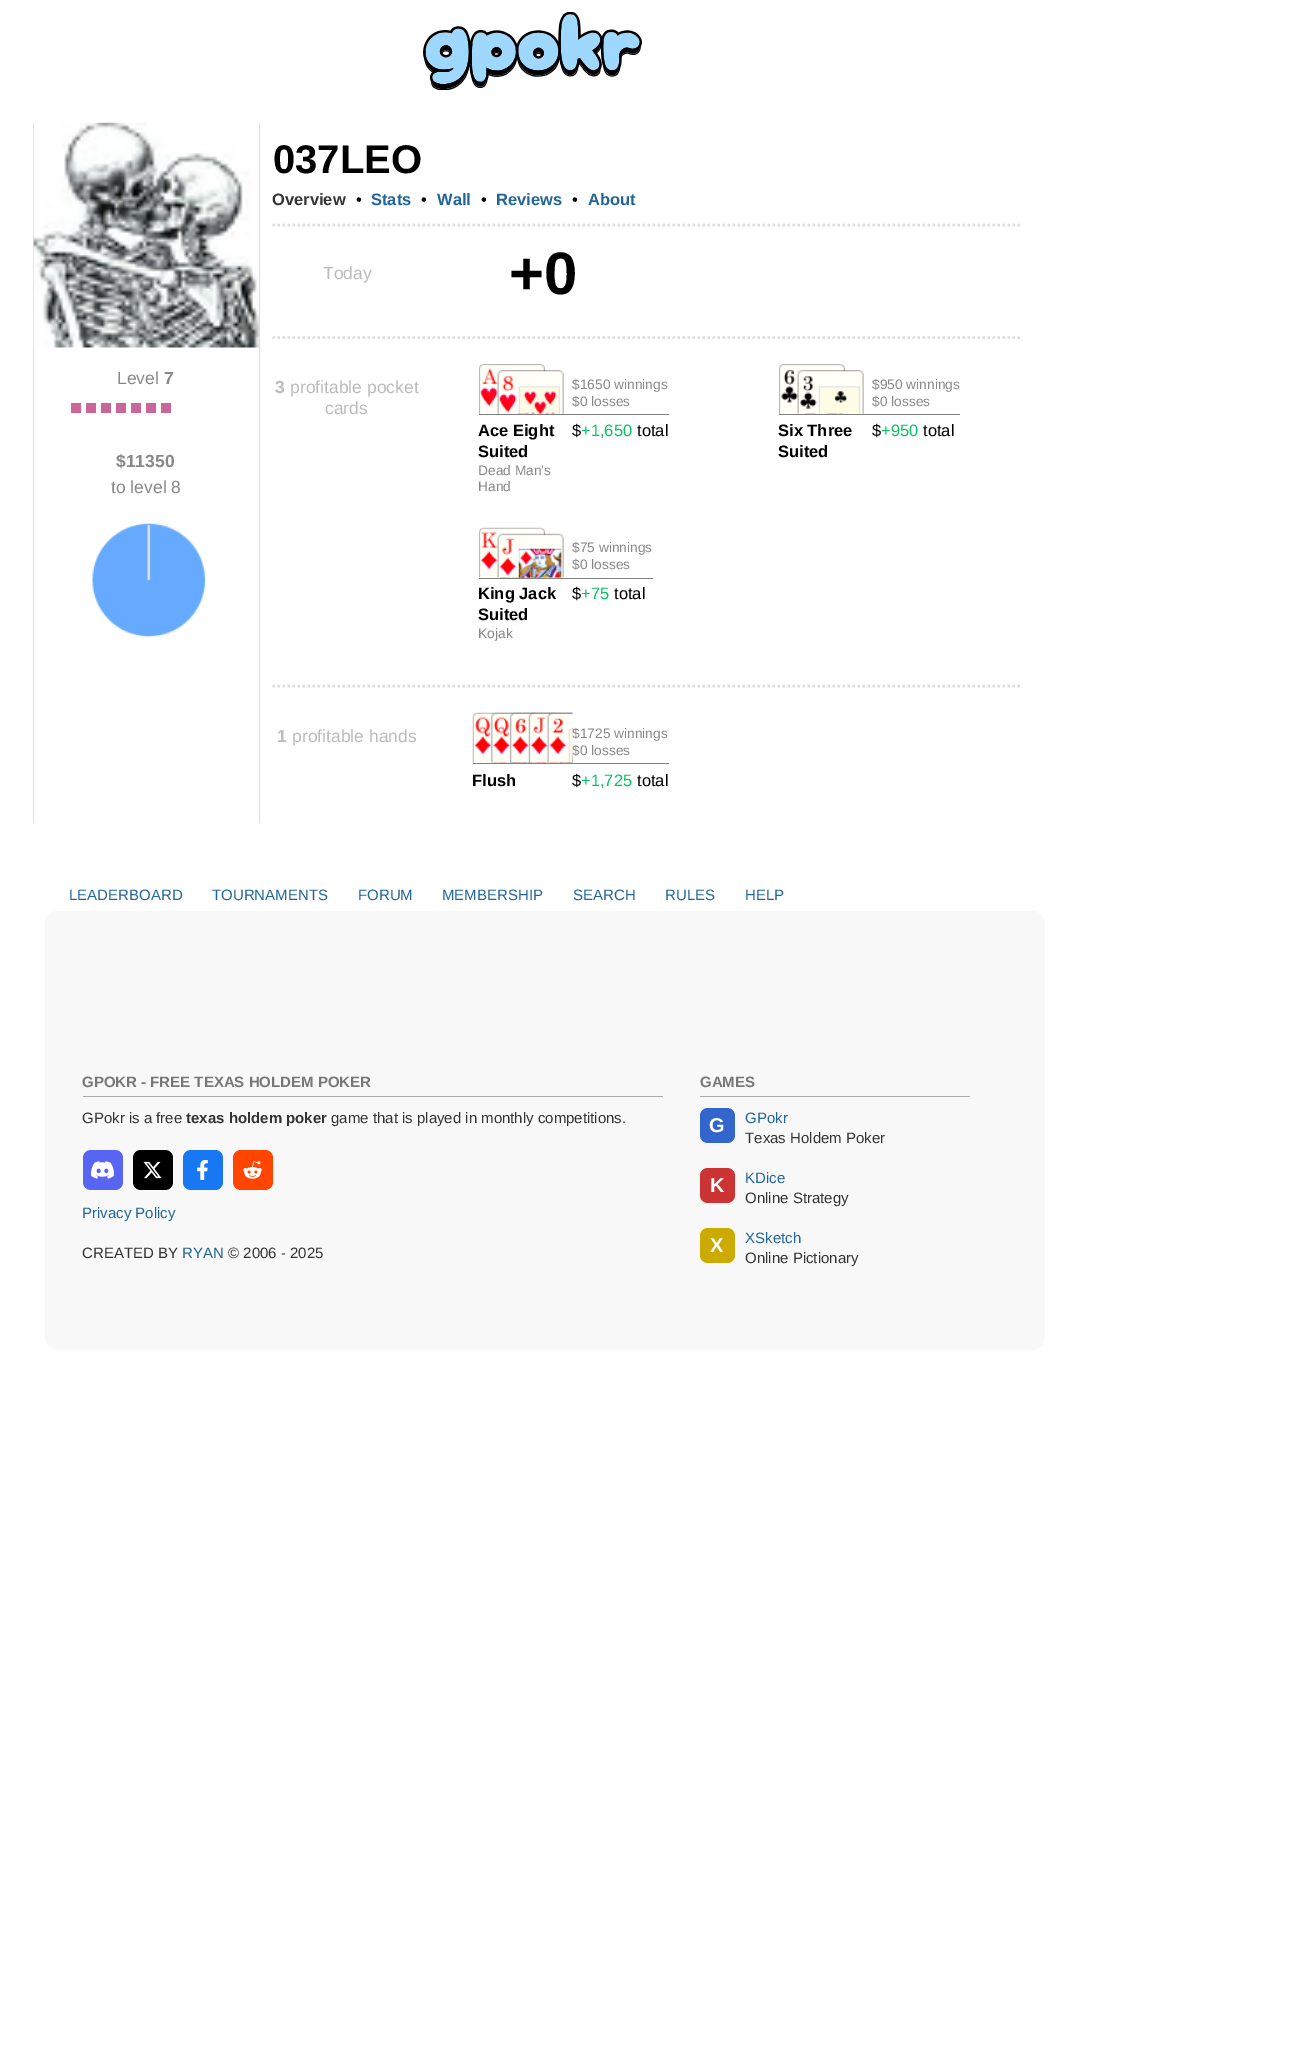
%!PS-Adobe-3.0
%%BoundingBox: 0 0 1313 2059
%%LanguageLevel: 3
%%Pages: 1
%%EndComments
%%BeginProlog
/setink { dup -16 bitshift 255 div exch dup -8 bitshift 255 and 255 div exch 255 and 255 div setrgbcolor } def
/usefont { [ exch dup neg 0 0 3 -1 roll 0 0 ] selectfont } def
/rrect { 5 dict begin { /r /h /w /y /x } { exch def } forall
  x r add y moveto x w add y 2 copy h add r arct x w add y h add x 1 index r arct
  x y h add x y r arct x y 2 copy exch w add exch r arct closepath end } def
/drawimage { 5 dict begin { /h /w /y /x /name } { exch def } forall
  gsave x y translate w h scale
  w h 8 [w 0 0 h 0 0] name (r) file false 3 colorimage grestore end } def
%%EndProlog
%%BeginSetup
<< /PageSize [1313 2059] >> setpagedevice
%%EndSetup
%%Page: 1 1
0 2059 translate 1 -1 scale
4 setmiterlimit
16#FFFFFF setink
0 0 1313 2059 rectfill
(img1.raw) 423 12 219 78 drawimage
16#DDDDDD setink
259 123 1 700 rectfill
33 123 1 700 rectfill
(img2.raw) 33 122 226 226 drawimage
/LiberationSans-Regular 17.5 usefont
16#888888 setink
117 384 moveto (Level) show
/LiberationSans-Bold 17.5 usefont
164 384 moveto (7) show
[
    [71 403 10 10 16#CC6699]
    [86 403 10 10 16#CC6699]
    [101 403 10 10 16#CC6699]
    [116 403 10 10 16#CC6699]
    [131 403 10 10 16#CC6699]
    [146 403 10 10 16#CC6699]
    [161 403 10 10 16#CC6699]
] { aload pop setink rectfill } forall
16#888888 setink
116 467 moveto ($11350) show
/LiberationSans-Regular 17.5 usefont
111 493 moveto (to level 8) show
(img3.raw) 92 523 114 114 drawimage
/LiberationSans-Bold 40 usefont
16#000000 setink
273 173 moveto (037LEO) show
/LiberationSans-Bold 16.5 usefont
16#333333 setink
272 205 moveto (Overview) show
/LiberationSans-Regular 16.5 usefont
16#000000 setink
356 205 moveto (•) show
/LiberationSans-Bold 16.5 usefont
16#226699 setink
371 205 moveto (Stats) show
/LiberationSans-Regular 16.5 usefont
16#000000 setink
421 205 moveto (•) show
/LiberationSans-Bold 16.5 usefont
16#226699 setink
437 205 moveto (Wall) show
/LiberationSans-Regular 16.5 usefont
16#000000 setink
481 205 moveto (•) show
/LiberationSans-Bold 16.5 usefont
16#226699 setink
496 205 moveto (Reviews) show
/LiberationSans-Regular 16.5 usefont
16#000000 setink
572 205 moveto (•) show
/LiberationSans-Bold 16.5 usefont
16#226699 setink
588 205 moveto (About) show
16#DDDDDD setink
2.5 setlinewidth
[2.5 2.5] 0 setdash
272.5 225 moveto 1022.5 225 lineto stroke
/LiberationSans-Regular 17.5 usefont
16#BBBBBB setink
323 279 moveto (Today) show
/LiberationSans-Bold 60 usefont
16#000000 setink
509 294 moveto (+0) show
16#DDDDDD setink
272.5 337.5 moveto 1022.5 337.5 lineto stroke
/LiberationSans-Bold 17.5 usefont
16#BBBBBB setink
275 393 moveto (3) show
/LiberationSans-Regular 17.5 usefont
290 393 moveto (profitable pocket) show
325 414 moveto (cards) show
/LiberationSans-Regular 13.75 usefont
16#888888 setink
572 389 moveto ($1650 winnings) show
572 406 moveto ($0 losses) show
/LiberationSans-Regular 16.5 usefont
16#000000 setink
572 436 moveto ($) show
16#02C45E setink
581 436 moveto (+1,650) show
16#000000 setink
637 436 moveto (total) show
(img4.raw) 479 364 66 50 drawimage
(img5.raw) 497 370 67 44 drawimage
16#808080 setink
479 414 190 1 rectfill
/LiberationSans-Bold 16.5 usefont
16#000000 setink
478 436 moveto (Ace Eight) show
478 457 moveto (Suited) show
/LiberationSans-Regular 13.75 usefont
16#888888 setink
478 475 moveto (Dead Man's) show
478 491 moveto (Hand) show
(img6.raw) 779 364 66 50 drawimage
(img7.raw) 797 370 67 44 drawimage
16#808080 setink
779 414 181 1 rectfill
/LiberationSans-Bold 16.5 usefont
16#000000 setink
778 436 moveto (Six Three) show
778 457 moveto (Suited) show
/LiberationSans-Regular 13.75 usefont
16#888888 setink
872 389 moveto ($950 winnings) show
872 406 moveto ($0 losses) show
/LiberationSans-Regular 16.5 usefont
16#000000 setink
872 436 moveto ($) show
16#02C45E setink
881 436 moveto (+950) show
16#000000 setink
923 436 moveto (total) show
/LiberationSans-Regular 13.75 usefont
16#888888 setink
572 552 moveto ($75 winnings) show
572 569 moveto ($0 losses) show
/LiberationSans-Regular 16.5 usefont
16#000000 setink
572 599 moveto ($) show
16#02C45E setink
581 599 moveto (+75) show
16#000000 setink
614 599 moveto (total) show
(img8.raw) 479 527 66 51 drawimage
(img9.raw) 497 533 67 45 drawimage
16#808080 setink
479 578 174 1 rectfill
/LiberationSans-Bold 16.5 usefont
16#000000 setink
478 599 moveto (King Jack) show
478 620 moveto (Suited) show
/LiberationSans-Regular 13.75 usefont
16#888888 setink
478 638 moveto (Kojak) show
16#DDDDDD setink
272.5 686 moveto 1022.5 686 lineto stroke
/LiberationSans-Bold 17.5 usefont
16#BBBBBB setink
277 742 moveto (1) show
/LiberationSans-Regular 17.5 usefont
292 742 moveto (profitable hands) show
(img10.raw) 472 712 67 51 drawimage
(img11.raw) 491 712 67 51 drawimage
/LiberationSans-Regular 13.75 usefont
16#888888 setink
572 738 moveto ($1725 winnings) show
572 755 moveto ($0 losses) show
(img12.raw) 510 712 63 51 drawimage
(img13.raw) 528 712 45 51 drawimage
(img14.raw) 547 712 26 51 drawimage
16#808080 setink
473 763 196 1 rectfill
/LiberationSans-Bold 16.5 usefont
16#000000 setink
472 786 moveto (Flush) show
/LiberationSans-Regular 16.5 usefont
572 786 moveto ($) show
16#02C45E setink
581 786 moveto (+1,725) show
16#000000 setink
637 786 moveto (total) show
/LiberationSans-Regular 15 usefont
16#226699 setink
[
    [(LEADERBOARD) 69 900]
    [(TOURNAMENTS) 212 900]
    [(FORUM) 358 900]
    [(MEMBERSHIP) 442 900]
    [(SEARCH) 573 900]
    [(RULES) 665 900]
    [(HELP) 745 900]
] { aload pop moveto show } forall
16#F8F8F8 setink
45 911 1000 439 13 rrect fill
16#AAAAAA setink
83 1096 580 1 rectfill
/LiberationSans-Bold 15 usefont
16#777777 setink
82 1087 moveto (GPOKR - FREE TEXAS HOLDEM POKER) show
/LiberationSans-Regular 15 usefont
16#333333 setink
82 1123 moveto (GPokr is a free) show
/LiberationSans-Bold 15 usefont
186 1123 moveto (texas holdem poker) show
/LiberationSans-Regular 15 usefont
331 1123 moveto (game that is played in monthly competitions.) show
16#5865F2 setink
83 1150 40 40 8 rrect fill
(img15.raw) 91 1161 23 18 drawimage
16#000000 setink
133 1150 40 40 8 rrect fill
(img16.raw) 143 1161 19 18 drawimage
16#1877F2 setink
183 1150 40 40 8 rrect fill
(img17.raw) 197 1160 11 20 drawimage
16#FF4500 setink
233 1150 40 40 8 rrect fill
(img18.raw) 243 1161 19 18 drawimage
16#226699 setink
82 1218 moveto (Privacy Policy) show
16#333333 setink
82 1258 moveto (CREATED BY) show
16#226699 setink
182 1258 moveto (RYAN) show
16#333333 setink
228 1258 moveto (© 2006 - 2025) show
16#AAAAAA setink
700 1096 270 1 rectfill
/LiberationSans-Bold 15 usefont
16#777777 setink
700 1087 moveto (GAMES) show
16#3366CC setink
700 1108 35 35 8 rrect fill
/LiberationSans-Bold 20 usefont
16#FFFFFF setink
709 1132 moveto (G) show
/LiberationSans-Regular 15 usefont
16#226699 setink
745 1123 moveto (GPokr) show
16#333333 setink
745 1143 moveto (Texas Holdem Poker) show
16#CC3333 setink
700 1168 35 35 8 rrect fill
/LiberationSans-Bold 20 usefont
16#FFFFFF setink
710 1192 moveto (K) show
/LiberationSans-Regular 15 usefont
16#226699 setink
745 1183 moveto (KDice) show
16#333333 setink
745 1203 moveto (Online Strategy) show
16#CCAA00 setink
700 1228 35 35 8 rrect fill
/LiberationSans-Bold 20 usefont
16#FFFFFF setink
710 1252 moveto (X) show
/LiberationSans-Regular 15 usefont
16#226699 setink
745 1243 moveto (XSketch) show
16#333333 setink
745 1263 moveto (Online Pictionary) show
showpage
%%EOF
